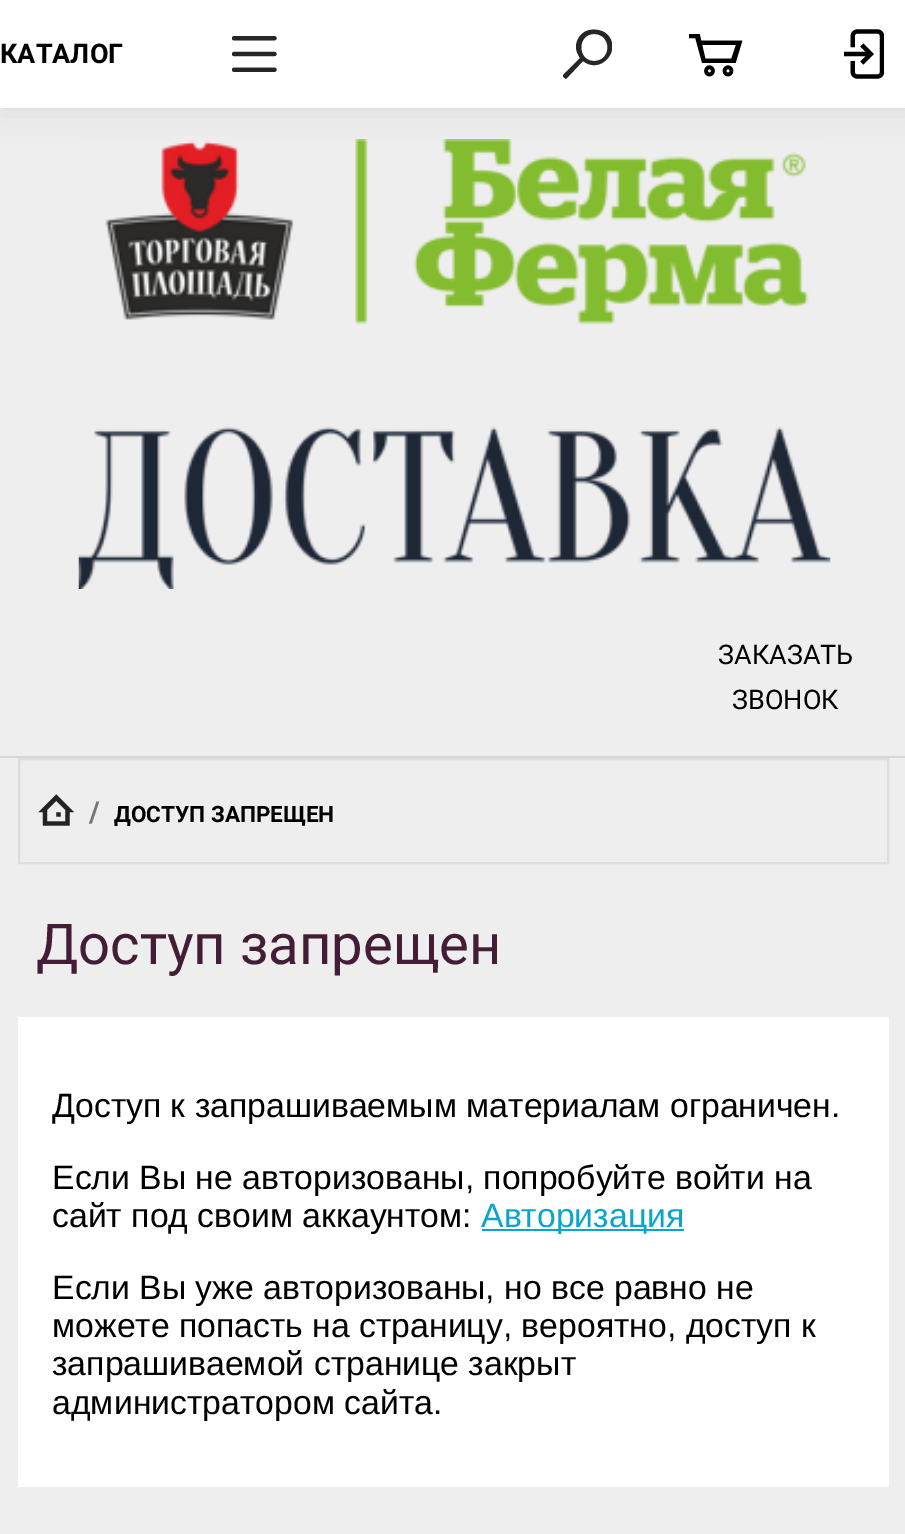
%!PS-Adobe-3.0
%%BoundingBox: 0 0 905 1534
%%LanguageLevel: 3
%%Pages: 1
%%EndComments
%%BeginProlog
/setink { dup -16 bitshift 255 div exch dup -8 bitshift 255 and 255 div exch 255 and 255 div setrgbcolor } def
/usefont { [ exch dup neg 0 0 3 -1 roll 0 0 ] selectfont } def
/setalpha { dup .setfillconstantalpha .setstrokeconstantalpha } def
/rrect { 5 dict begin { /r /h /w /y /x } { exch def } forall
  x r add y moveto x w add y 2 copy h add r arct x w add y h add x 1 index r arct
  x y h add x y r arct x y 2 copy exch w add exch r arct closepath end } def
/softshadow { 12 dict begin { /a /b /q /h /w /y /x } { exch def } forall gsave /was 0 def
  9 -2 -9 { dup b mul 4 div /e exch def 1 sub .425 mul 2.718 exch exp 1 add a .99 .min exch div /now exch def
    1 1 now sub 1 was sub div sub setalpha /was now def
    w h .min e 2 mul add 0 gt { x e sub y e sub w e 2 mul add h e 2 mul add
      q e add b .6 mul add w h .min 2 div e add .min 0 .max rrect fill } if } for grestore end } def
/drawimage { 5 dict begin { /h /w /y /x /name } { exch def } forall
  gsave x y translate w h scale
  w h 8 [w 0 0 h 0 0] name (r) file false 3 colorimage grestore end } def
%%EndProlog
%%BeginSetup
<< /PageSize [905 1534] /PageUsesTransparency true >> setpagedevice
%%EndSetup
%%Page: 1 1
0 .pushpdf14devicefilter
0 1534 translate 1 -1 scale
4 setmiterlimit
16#EEEEEE setink
0 0 905 1534 rectfill
16#000000 setink
0 -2 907 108 0 17 0.1 softshadow
16#FFFFFF setink
0 0 905 108 rectfill
/roboto-Bold 27 usefont
16#000000 setink
0 63 moveto (КАТАЛОГ) show
(img1.raw) 232 36 45 36 drawimage
gsave
563 29 49 50 rectclip
16#262626 setink
576 47 moveto 576 39 582 31 590 30 curveto 595 29 600 30 604 32 curveto 625 46 602 76 583 61 curveto 566 79 lineto 562 76 lineto 580 58 lineto 578 55 576 51 576 47 curveto closepath 594 61 moveto 612 61 612 34 594 34 curveto 577 34 577 61 594 61 curveto closepath eofill
grestore
(img2.raw) 689 34 54 43 drawimage
(img3.raw) 844 29 40 50 drawimage
(img4.raw) 78 139 753 450 drawimage
16#D6D6D6 setink
0 756 905 2 rectfill
/roboto-Regular 27 usefont
16#000000 setink
718 664 moveto (ЗАКАЗАТЬ) show
732 709 moveto (ЗВОНОК) show
16#DDDDDD setink
2 setlinewidth
19 759 869 104 rectstroke
(img5.raw) 38 794 36 32 drawimage
/roboto-Bold 29 usefont
16#777777 setink
89 822 moveto (/) show
/roboto-Bold 22.5 usefont
16#000000 setink
114 822 moveto (ДОСТУП ЗАПРЕЩЕН) show
/roboto-Regular 56.25 usefont
16#431D35 setink
36 964 moveto (Доступ запрещен) show
16#FFFFFF setink
18 1017 871 470 rectfill
/LiberationSans-Regular 33.75 usefont
16#000000 setink
[
    [(Доступ к запрашиваемым материалам ограничен.) 52 1117]
    [(Если Вы не авторизованы, попробуйте войти на) 52 1189]
    [(сайт под своим аккаунтом:) 52 1227]
] { aload pop moveto show } forall
16#0BA5CB setink
482 1229 202 2 rectfill
481 1227 moveto (Авторизация) show
16#000000 setink
[
    [(Если Вы уже авторизованы, но все равно не) 52 1299]
    [(можете попасть на страницу, вероятно, доступ к) 52 1337]
    [(запрашиваемой странице закрыт) 52 1375]
    [(администратором сайта.) 52 1414]
] { aload pop moveto show } forall
.poppdf14devicefilter showpage
%%EOF
